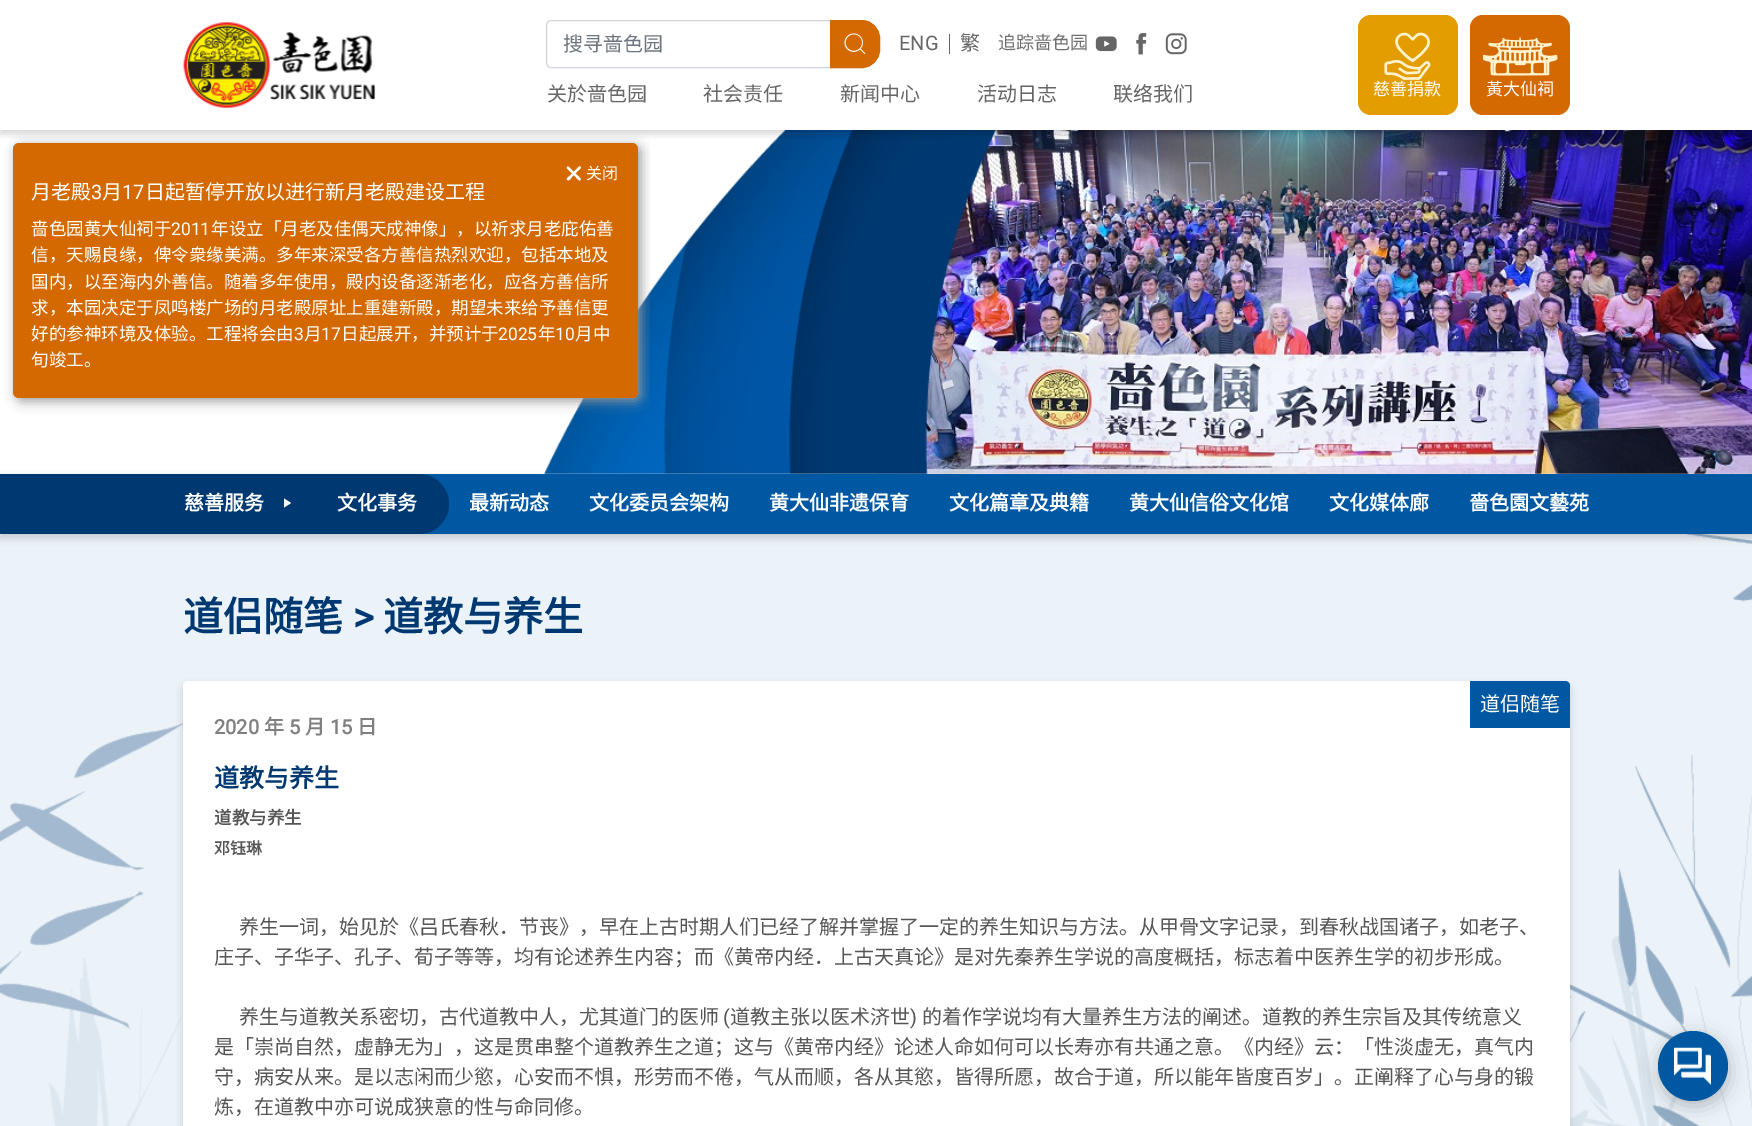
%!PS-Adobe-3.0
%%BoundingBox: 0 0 1752 1126
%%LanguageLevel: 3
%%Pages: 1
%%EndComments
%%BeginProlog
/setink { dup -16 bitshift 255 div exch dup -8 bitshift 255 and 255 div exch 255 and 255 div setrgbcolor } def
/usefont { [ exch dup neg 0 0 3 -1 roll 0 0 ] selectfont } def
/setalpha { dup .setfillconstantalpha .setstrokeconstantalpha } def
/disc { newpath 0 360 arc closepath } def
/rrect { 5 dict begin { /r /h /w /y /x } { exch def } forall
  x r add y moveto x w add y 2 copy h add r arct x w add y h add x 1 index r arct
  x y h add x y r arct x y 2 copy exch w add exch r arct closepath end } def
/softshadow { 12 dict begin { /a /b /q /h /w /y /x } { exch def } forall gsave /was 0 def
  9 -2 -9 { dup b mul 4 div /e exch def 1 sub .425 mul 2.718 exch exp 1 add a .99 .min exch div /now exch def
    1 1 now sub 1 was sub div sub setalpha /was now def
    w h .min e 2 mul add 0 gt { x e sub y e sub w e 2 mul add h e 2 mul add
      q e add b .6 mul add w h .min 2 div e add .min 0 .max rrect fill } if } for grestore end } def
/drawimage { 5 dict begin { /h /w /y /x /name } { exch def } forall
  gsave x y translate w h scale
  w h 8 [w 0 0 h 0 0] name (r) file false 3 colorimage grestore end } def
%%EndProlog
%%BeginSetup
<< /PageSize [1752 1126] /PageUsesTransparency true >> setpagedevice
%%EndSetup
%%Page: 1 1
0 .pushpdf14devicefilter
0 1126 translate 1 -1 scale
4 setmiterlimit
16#FFFFFF setink
0 0 1752 1126 rectfill
(img9.raw) 876 130 876 344 drawimage
(img8.raw) 543 130 454 344 drawimage
gsave
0 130 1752 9 rectclip
16#000000 setink
0 4 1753 130 0 4 0.16 softshadow
grestore
(img1.raw) 183 22 193 86 drawimage
16#CED4DA setink
551 20.5 moveto 830.5 20.5 lineto 830.5 67.5 lineto 551 67.5 lineto 548.5 67.5 546.5 65.5 546.5 63 curveto 546.5 25 lineto 546.5 22.5 548.5 20.5 551 20.5 curveto closepath stroke
/NotoSansCJKSC-Regular 20 usefont
16#6C757D setink
563 51 moveto (搜寻啬色园) show
16#D36900 setink
830.5 20.5 moveto 862 20.5 lineto 871.5 20.5 879.5 28.5 879.5 38 curveto 879.5 50 lineto 879.5 59.5 871.5 67.5 862 67.5 curveto 830.5 67.5 lineto closepath gsave fill grestore
stroke
(img2.raw) 844 33 22 22 drawimage
16#666666 setink
949 34 1 20 rectfill
/Roboto-Regular 20 usefont
899 50 moveto (ENG) show
/NotoSansCJKSC-Regular 20 usefont
960 50 moveto (繁) show
/NotoSansCJKSC-Regular 18 usefont
16#707070 setink
998 49 moveto (追踪啬色园) show
(img3.raw) 1095 36 22 16 drawimage
(img4.raw) 1136 33 11 22 drawimage
(img5.raw) 1165 33 22 22 drawimage
/NotoSansCJKSC-Regular 20 usefont
16#666666 setink
[
    [(关於啬色园) 547 101]
    [(社会责任) 703 101]
    [(新闻中心) 840 101]
    [(活动日志) 977 101]
    [(联络我们) 1113 101]
] { aload pop moveto show } forall
16#E39D00 setink
1358 15 100 100 13 rrect fill
(img6.raw) 1384 32 47 48 drawimage
/NotoSansCJKSC-Regular 17 usefont
16#FFFFFF setink
1373 95 moveto (慈善捐款) show
16#D36900 setink
1470 15 100 100 13 rrect fill
(img7.raw) 1483 37 75 39 drawimage
16#FFFFFF setink
1486 95 moveto (黃大仙祠) show
gsave
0 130 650 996 rectclip
16#999999 setink
16 146 625 255 6 6 1 softshadow
grestore
16#D36900 setink
13 143 625 255 6 rrect fill
16#FFFFFF setink
569 167 moveto 576.5 174.5 lineto 577.5 175.5 581.5 178.5 580.5 180 curveto 579.5 181.5 577 178.5 576.5 178 curveto 567 168.5 lineto 566 167 568 166 569 167 curveto closepath fill
/NotoSansCJKSC-Regular 16 usefont
586 179 moveto (关闭) show
580.5 168.5 moveto 572.5 176 lineto 572 177 569 181.5 567.5 180 curveto 565.5 179 568.5 177 569 176.5 curveto 579 166.5 lineto 580 166 581.5 167.5 580.5 168.5 curveto closepath fill
/NotoSansCJKSC-Regular 20 usefont
31 199 moveto (月老殿) show
/Roboto-Regular 20 usefont
91 199 moveto (3) show
/NotoSansCJKSC-Regular 20 usefont
102 199 moveto (月) show
/Roboto-Regular 20 usefont
122 199 moveto (17) show
/NotoSansCJKSC-Regular 20 usefont
145 199 moveto (日起暂停开放以进行新月老殿建设工程) show
/NotoSansCJKSC-Regular 17.5 usefont
31 235 moveto (啬色园黄大仙祠于) show
/Roboto-Regular 17.5 usefont
171 235 moveto (2011) show
/NotoSansCJKSC-Regular 17.5 usefont
[
    [(年设立「月老及佳偶天成神像」，以祈求月老庇佑善) 211 235]
    [(信，天赐良缘，俾令衆缘美满。多年来深受各方善信热烈欢迎，包括本地及) 31 261]
    [(国内，以至海内外善信。随着多年使用，殿内设备逐渐老化，应各方善信所) 31 288]
    [(求，本园决定于凤鸣楼广场的月老殿原址上重建新殿，期望未来给予善信更) 31 314]
    [(好的参神环境及体验。工程将会由) 31 340]
] { aload pop moveto show } forall
/Roboto-Regular 17.5 usefont
294 340 moveto (3) show
/NotoSansCJKSC-Regular 17.5 usefont
304 340 moveto (月) show
/Roboto-Regular 17.5 usefont
321 340 moveto (17) show
/NotoSansCJKSC-Regular 17.5 usefont
341 340 moveto (日起展开，并预计于) show
/Roboto-Regular 17.5 usefont
498 340 moveto (2025) show
/NotoSansCJKSC-Regular 17.5 usefont
538 340 moveto (年) show
/Roboto-Regular 17.5 usefont
555 340 moveto (10) show
/NotoSansCJKSC-Regular 17.5 usefont
575 340 moveto (月中) show
31 366 moveto (旬竣工。) show
16#EBF2F8 setink
0 534 1752 592 rectfill
(img10.raw) 0 534 1752 592 drawimage
16#000000 setink
0 478 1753 60 0 4 0.16 softshadow
16#0057A2 setink
419 474 1333 60 rectfill
16#003972 setink
164 474 moveto 419 474 lineto 435.5 474 449 487.5 449 504 curveto 449 520.5 435.5 534 419 534 curveto 164 534 lineto closepath fill
0 474 164 60 rectfill
/NotoSansCJKSC-Bold 20 usefont
16#FFFFFF setink
184 510 moveto (慈善服务) show
291 503 moveto 284 507.5 lineto 284 498.5 lineto closepath fill
[
    [(文化事务) 337 510]
    [(最新动态) 469 510]
    [(文化委员会架构) 589 510]
    [(黄大仙非遗保育) 769 510]
    [(文化篇章及典籍) 949 510]
    [(黄大仙信俗文化馆) 1129 510]
    [(文化媒体廊) 1329 510]
    [(嗇色園文藝苑) 1469 510]
] { aload pop moveto show } forall
/NotoSansCJKSC-Bold 40 usefont
16#003972 setink
183 631 moveto (道侣随笔) show
/Roboto-Bold 40 usefont
353 631 moveto (>) show
/NotoSansCJKSC-Bold 40 usefont
383 631 moveto (道教与养生) show
16#000000 setink
183 685 1387 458 5 4 0.16 softshadow
16#FFFFFF setink
183 681 1387 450 5 rrect fill
16#0057A2 setink
1470 681 moveto 1565 681 lineto 1568 681 1570 683 1570 686 curveto 1570 728 lineto 1470 728 lineto closepath fill
/NotoSansCJKSC-Regular 20 usefont
16#FFFFFF setink
1480 711 moveto (道侣随笔) show
/Roboto-Bold 20 usefont
16#808080 setink
214 734 moveto (2020) show
/NotoSansCJKSC-Bold 20 usefont
264 734 moveto (年) show
/Roboto-Bold 20 usefont
289 734 moveto (5) show
/NotoSansCJKSC-Bold 20 usefont
305 734 moveto (月) show
/Roboto-Bold 20 usefont
330 734 moveto (15) show
/NotoSansCJKSC-Bold 20 usefont
357 734 moveto (日) show
/NotoSansCJKSC-Bold 25 usefont
16#003972 setink
214 787 moveto (道教与养生) show
/NotoSansCJKSC-Bold 17.5 usefont
16#555555 setink
214 824 moveto (道教与养生) show
/NotoSansCJKSC-Bold 16 usefont
214 854 moveto (邓钰琳) show
/NotoSansCJKSC-Regular 20 usefont
[
    [(养生一词，始见於《吕氏春秋．节丧》，早在上古时期人们已经了解并掌握了一定的养生知识与方法。从甲骨文字记录，到春秋战国诸子，如老子、) 239 934]
    [(庄子、子华子、孔子、荀子等等，均有论述养生内容；而《黄帝内经．上古天真论》是对先秦养生学说的高度概括，标志着中医养生学的初步形成。) 214 964]
    [(养生与道教关系密切，古代道教中人，尤其道门的医师) 239 1024]
] { aload pop moveto show } forall
/Roboto-Regular 20 usefont
723 1024 moveto (\() show
/NotoSansCJKSC-Regular 20 usefont
730 1024 moveto (道教主张以医术济世) show
/Roboto-Regular 20 usefont
910 1024 moveto (\)) show
/NotoSansCJKSC-Regular 20 usefont
[
    [(的着作学说均有大量养生方法的阐述。道教的养生宗旨及其传统意义) 922 1024]
    [(是「崇尚自然，虚静无为」，这是贯串整个道教养生之道；这与《黄帝内经》论述人命如何可以长寿亦有共通之意。《内经》云：「性淡虚无，真气内) 214 1054]
    [(守，病安从来。是以志闲而少慾，心安而不惧，形劳而不倦，气从而顺，各从其慾，皆得所愿，故合于道，所以能年皆度百岁」。正阐释了心与身的锻) 214 1084]
    [(炼，在道教中亦可说成狭意的性与命同修。) 214 1114]
] { aload pop moveto show } forall
16#000000 setink
1659 1036 70 70 35 9.5 0.24 softshadow
16#0057A2 setink
1693 1066 35 disc fill
(img11.raw) 1674 1047 37 38 drawimage
.poppdf14devicefilter showpage
%%EOF
